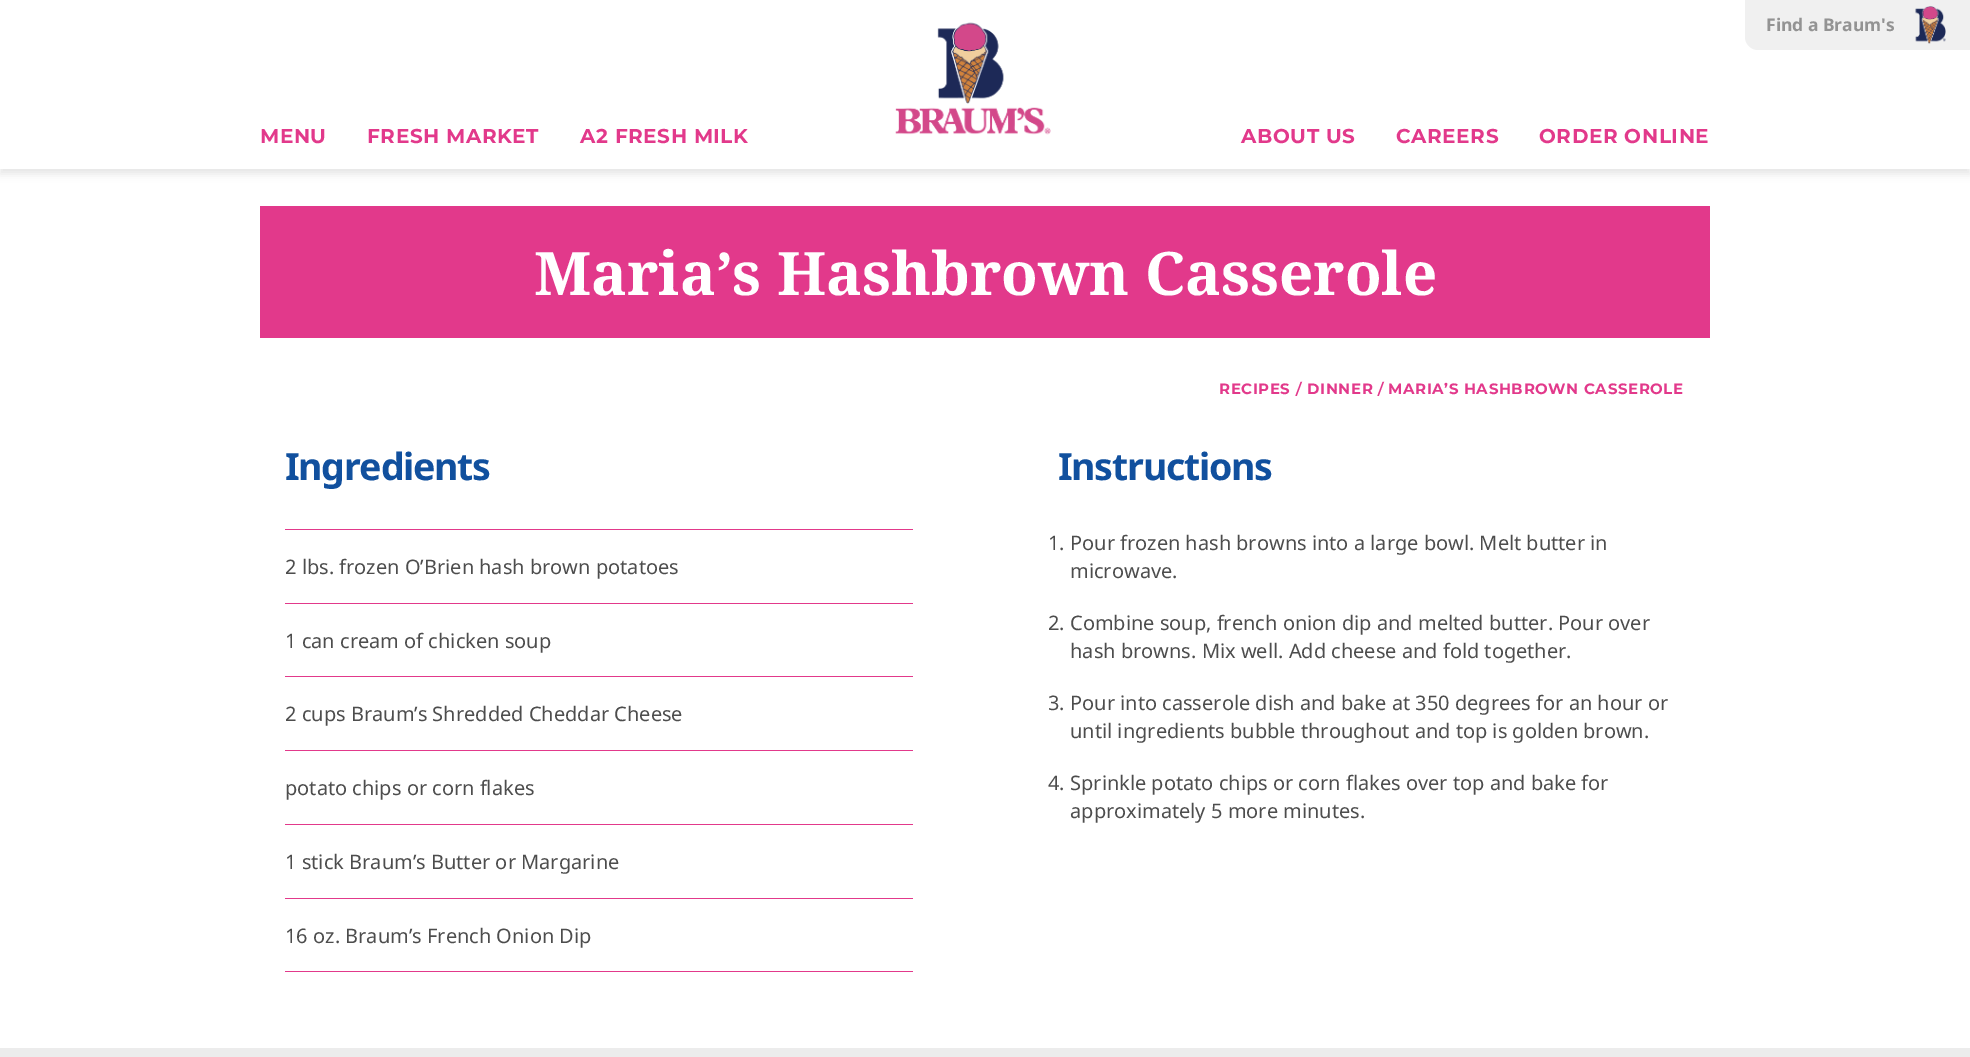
%!PS-Adobe-3.0
%%BoundingBox: 0 0 1970 1057
%%LanguageLevel: 3
%%Pages: 1
%%EndComments
%%BeginProlog
/setink { dup -16 bitshift 255 div exch dup -8 bitshift 255 and 255 div exch 255 and 255 div setrgbcolor } def
/usefont { [ exch dup neg 0 0 3 -1 roll 0 0 ] selectfont } def
/setalpha { dup .setfillconstantalpha .setstrokeconstantalpha } def
/rrect { 5 dict begin { /r /h /w /y /x } { exch def } forall
  x r add y moveto x w add y 2 copy h add r arct x w add y h add x 1 index r arct
  x y h add x y r arct x y 2 copy exch w add exch r arct closepath end } def
/softshadow { 12 dict begin { /a /b /q /h /w /y /x } { exch def } forall gsave /was 0 def
  9 -2 -9 { dup b mul 4 div /e exch def 1 sub .425 mul 2.718 exch exp 1 add a .99 .min exch div /now exch def
    1 1 now sub 1 was sub div sub setalpha /was now def
    w h .min e 2 mul add 0 gt { x e sub y e sub w e 2 mul add h e 2 mul add
      q e add b .6 mul add w h .min 2 div e add .min 0 .max rrect fill } if } for grestore end } def
/drawimage { 5 dict begin { /h /w /y /x /name } { exch def } forall
  gsave x y translate w h scale
  w h 8 [w 0 0 h 0 0] name (r) file false 3 colorimage grestore end } def
%%EndProlog
%%BeginSetup
<< /PageSize [1970 1057] /PageUsesTransparency true >> setpagedevice
%%EndSetup
%%Page: 1 1
0 .pushpdf14devicefilter
0 1057 translate 1 -1 scale
4 setmiterlimit
16#FFFFFF setink
0 0 1970 1057 rectfill
gsave
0 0 moveto 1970 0 lineto 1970 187 lineto 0 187 lineto closepath 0 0 moveto 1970 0 lineto 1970 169 lineto 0 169 lineto closepath eoclip newpath
16#898888 setink
0 5 1970 169 0 4 0.2 softshadow
grestore
(img1.raw) 895 22 156 113 drawimage
16#F0F0F0 setink
1745 0 moveto 1970 0 lineto 1970 50 lineto 1758 50 lineto 1751 50 1745 44 1745 37 curveto closepath fill
/NotoSans-Bold 17.5 usefont
16#939393 setink
1766 31 moveto (Find a Braum's) show
(img2.raw) 1915 6 31 38 drawimage
/Montserrat-Bold 20 usefont
16#E2398B setink
260 143 moveto 0.6 0 (MENU) ashow
367 143 moveto 0.6 0 (FRESH MARKET) ashow
580 143 moveto 0.6 0 (A2 FRESH MILK) ashow
1241 143 moveto 0.6 0 (ABOUT US) ashow
1396 143 moveto 0.6 0 (CAREERS) ashow
1539 143 moveto 0.6 0 (ORDER ONLINE) ashow
260 206 1450 132 rectfill
/NotoSerif-Bold 60 usefont
16#FFFFFF setink
534 295 moveto (Maria’s Hashbrown Casserole) show
/Montserrat-Bold 15 usefont
16#E2398B setink
1219 394 moveto 0.6 0 (RECIPES) ashow
/NotoSans-Regular 20 usefont
1295 396 moveto 0.6 0 (/) ashow
/Montserrat-Bold 15 usefont
1307 394 moveto 0.6 0 (DINNER) ashow
/NotoSans-Regular 20 usefont
1377 396 moveto 0.6 0 (/) ashow
/Montserrat-Bold 15 usefont
1388 394 moveto 0.6 0 (MARIA’S HASHBROWN CASSEROLE) ashow
/NotoSans-Bold 37.5 usefont
16#11509E setink
285 480 moveto -1.25 0 (Ingredients) ashow
16#E2398B setink
285 529 628 1 rectfill
/NotoSans-Regular 20 usefont
16#4D4D4D setink
285 574 moveto (2 lbs. frozen O’Brien hash brown potatoes) show
16#E2398B setink
285 603 628 1 rectfill
16#4D4D4D setink
285 648 moveto (1 can cream of chicken soup) show
16#E2398B setink
285 676 628 1 rectfill
16#4D4D4D setink
285 721 moveto (2 cups Braum’s Shredded Cheddar Cheese) show
16#E2398B setink
285 750 628 1 rectfill
16#4D4D4D setink
285 795 moveto (potato chips or corn flakes) show
16#E2398B setink
285 824 628 1 rectfill
16#4D4D4D setink
285 869 moveto (1 stick Braum’s Butter or Margarine) show
16#E2398B setink
285 898 628 1 rectfill
285 971 628 1 rectfill
16#4D4D4D setink
285 943 moveto (16 oz. Braum’s French Onion Dip) show
/NotoSans-Bold 37.5 usefont
16#11509E setink
1058 480 moveto -1.25 0 (Instructions) ashow
/NotoSans-Regular 20 usefont
16#4D4D4D setink
[
    [(1. Pour frozen hash browns into a large bowl. Melt butter in) 1048 550]
    [(microwave.) 1070 578]
    [(2. Combine soup, french onion dip and melted butter. Pour over) 1048 630]
    [(hash browns. Mix well. Add cheese and fold together.) 1070 658]
    [(3. Pour into casserole dish and bake at 350 degrees for an hour or) 1048 710]
    [(until ingredients bubble throughout and top is golden brown.) 1070 738]
    [(4. Sprinkle potato chips or corn flakes over top and bake for) 1048 790]
    [(approximately 5 more minutes.) 1070 818]
] { aload pop moveto show } forall
16#ECECEC setink
0 1048 1970 9 rectfill
.poppdf14devicefilter showpage
%%EOF
